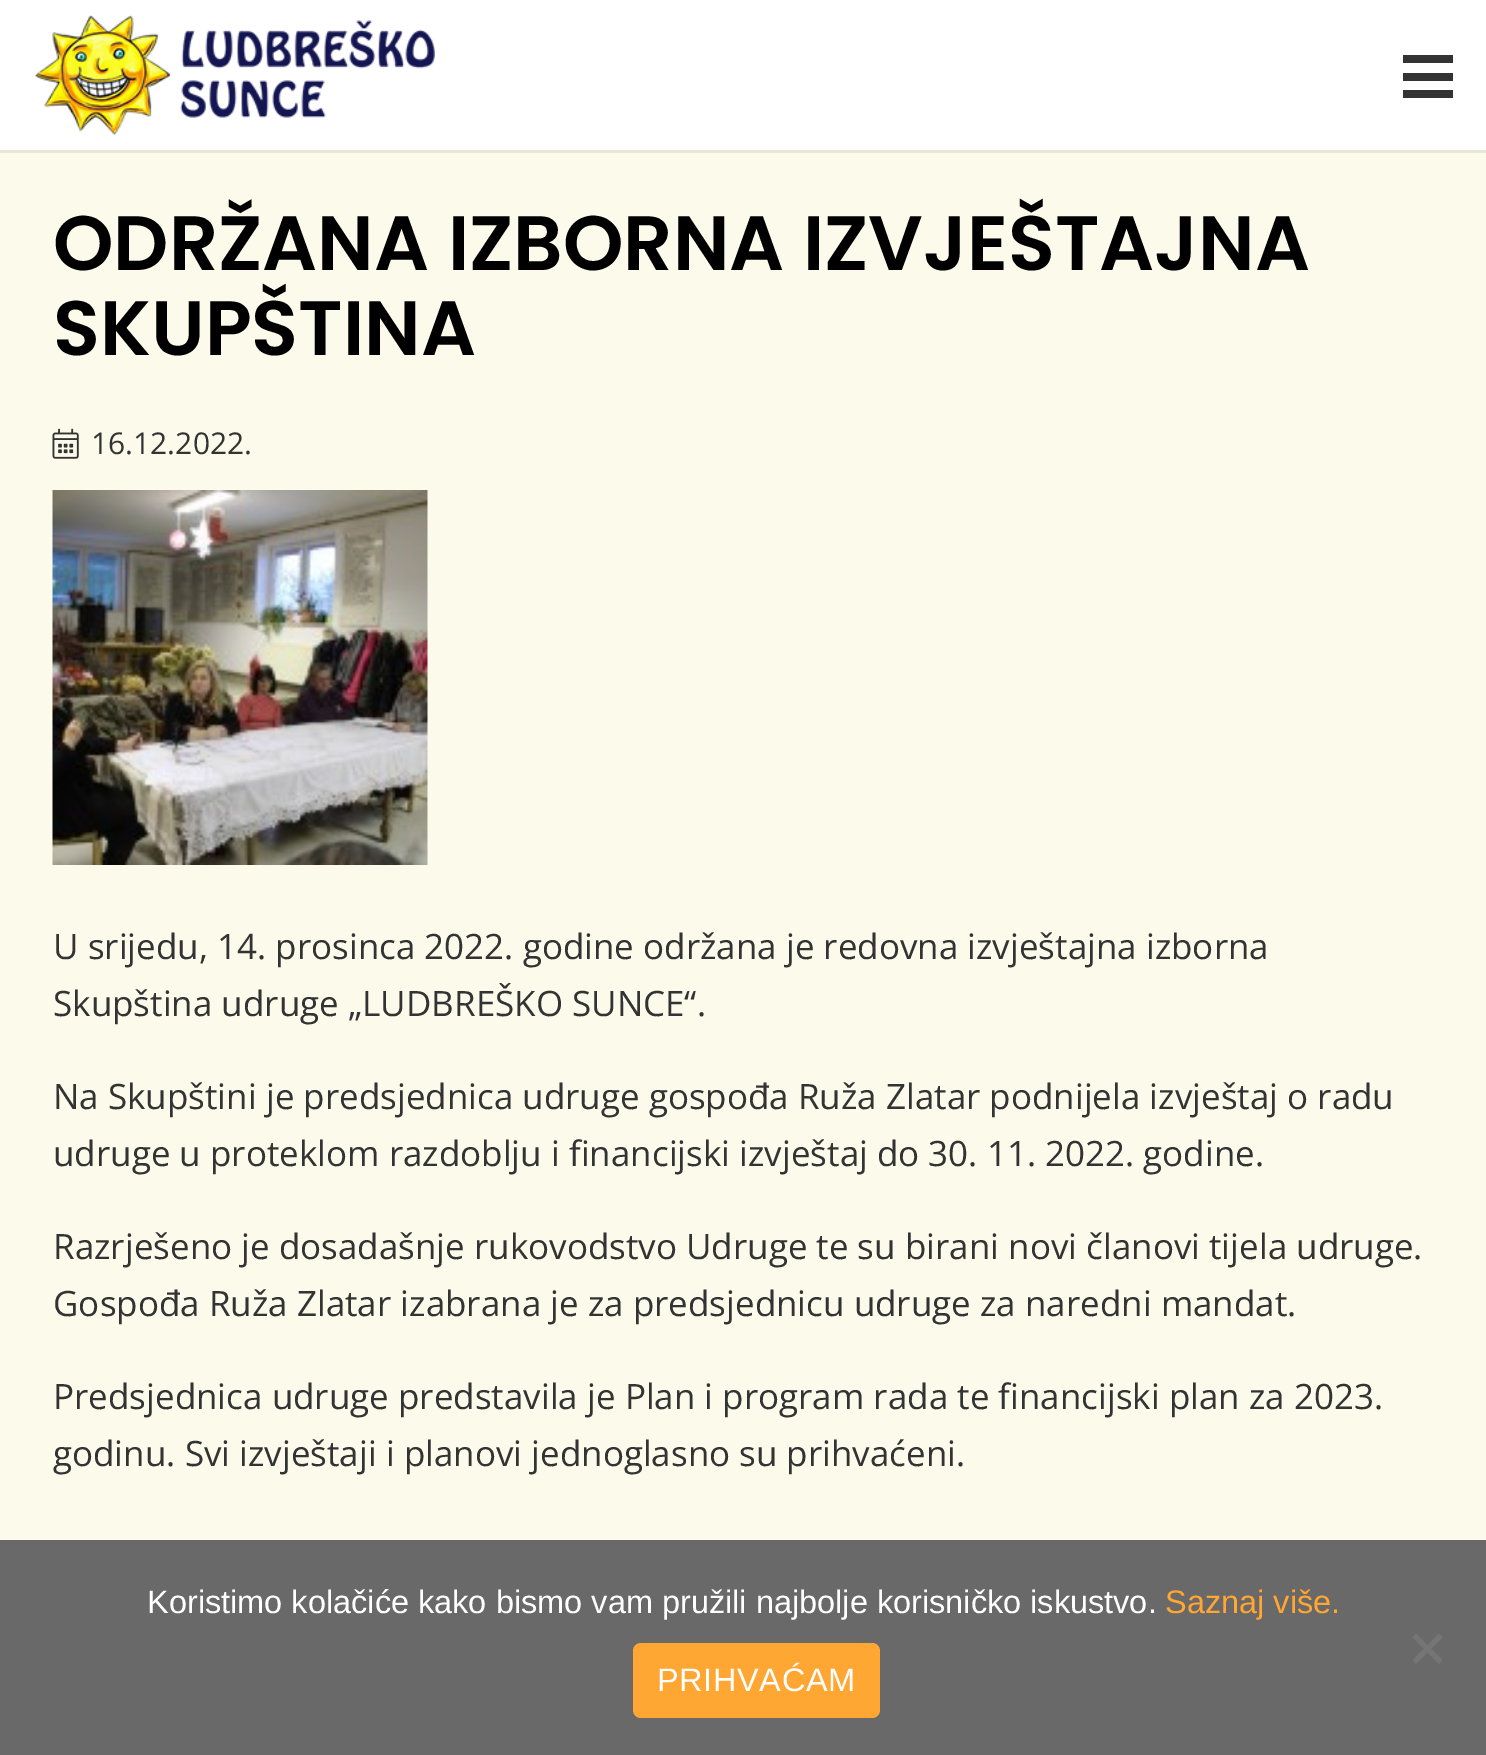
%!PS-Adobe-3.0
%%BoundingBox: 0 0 1486 1755
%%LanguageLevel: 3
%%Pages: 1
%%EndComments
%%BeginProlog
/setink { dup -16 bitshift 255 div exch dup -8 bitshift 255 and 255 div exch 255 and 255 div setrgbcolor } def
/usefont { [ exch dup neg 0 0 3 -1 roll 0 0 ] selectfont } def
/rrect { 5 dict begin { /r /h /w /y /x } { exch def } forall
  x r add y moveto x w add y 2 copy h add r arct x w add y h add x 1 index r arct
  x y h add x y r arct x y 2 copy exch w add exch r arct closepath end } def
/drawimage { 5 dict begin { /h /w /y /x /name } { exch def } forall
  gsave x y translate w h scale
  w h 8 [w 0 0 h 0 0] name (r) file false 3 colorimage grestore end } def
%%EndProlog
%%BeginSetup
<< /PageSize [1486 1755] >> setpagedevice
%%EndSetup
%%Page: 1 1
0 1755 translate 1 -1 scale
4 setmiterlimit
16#FCFBEB setink
0 0 1486 1755 rectfill
16#E8E7D8 setink
0 150 moveto 0 153 lineto 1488 153 lineto 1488 3 lineto 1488 150 lineto closepath fill
16#FFFFFF setink
0 0 1486 150 rectfill
(img1.raw) 35 15 400 120 drawimage
[
    [1403 73 50 8 16#333333]
    [1403 55 50 8 16#333333]
    [1403 90 50 8 16#333333]
] { aload pop setink rectfill } forall
/Poppins-SemiBold 77 usefont
16#000000 setink
53 270 moveto (ODRŽANA IZBORNA IZVJEŠTAJNA) show
53 355 moveto (SKUPŠTINA) show
(img2.raw) 52 428 27 31 drawimage
/OpenSans-Regular 30 usefont
16#333333 setink
91 454 moveto (16.12.2022.) show
(img3.raw) 52 490 376 375 drawimage
/OpenSans-Regular 35 usefont
[
    [(U srijedu, 14. prosinca 2022. godine održana je redovna izvještajna izborna) 53 959]
    [(Skupština udruge „LUDBREŠKO SUNCE“.) 53 1016]
    [(Na Skupštini je predsjednica udruge gospođa Ruža Zlatar podnijela izvještaj o radu) 53 1109]
    [(udruge u proteklom razdoblju i financijski izvještaj do 30. 11. 2022. godine.) 53 1166]
    [(Razrješeno je dosadašnje rukovodstvo Udruge te su birani novi članovi tijela udruge.) 53 1259]
    [(Gospođa Ruža Zlatar izabrana je za predsjednicu udruge za naredni mandat.) 53 1316]
    [(Predsjednica udruge predstavila je Plan i program rada te financijski plan za 2023.) 53 1409]
    [(godinu. Svi izvještaji i planovi jednoglasno su prihvaćeni.) 53 1466]
] { aload pop moveto show } forall
16#696969 setink
0 1540 1486 215 rectfill
/LiberationSans-Regular 32.5 usefont
16#FFFFFF setink
147 1613 moveto (Koristimo kolačiće kako bismo vam pružili najbolje korisničko iskustvo.) show
16#FFA633 setink
1165 1613 moveto (Saznaj više.) show
16#757575 setink
1439 1633.5 moveto 1442.5 1637.5 lineto 1416 1664 lineto 1412.5 1660 lineto closepath fill
1412.5 1637.5 moveto 1416 1633.5 lineto 1442.5 1660 lineto 1439 1664 lineto closepath fill
16#FFA633 setink
633 1643 247 75 8 rrect fill
16#FFFFFF setink
657 1691 moveto 0.6 0 (PRIHVAĆAM) ashow
showpage
%%EOF
